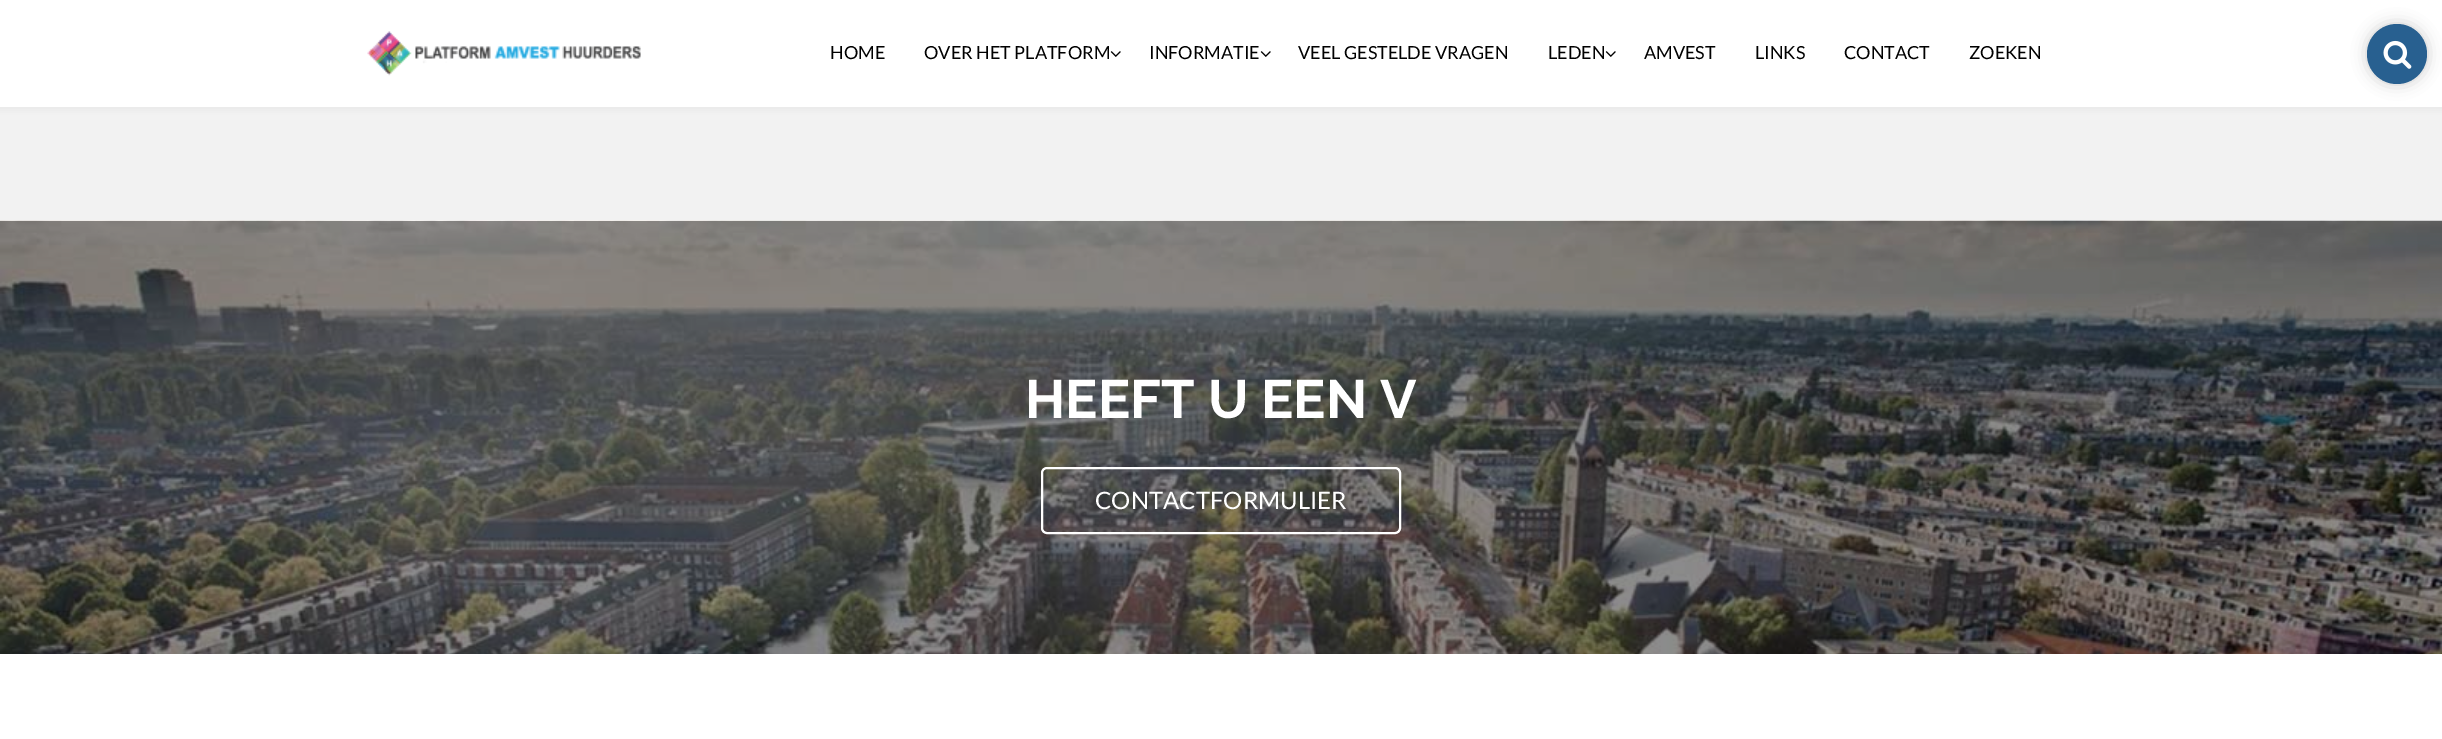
%!PS-Adobe-3.0
%%BoundingBox: 0 0 2442 739
%%LanguageLevel: 3
%%Pages: 1
%%EndComments
%%BeginProlog
/setink { dup -16 bitshift 255 div exch dup -8 bitshift 255 and 255 div exch 255 and 255 div setrgbcolor } def
/usefont { [ exch dup neg 0 0 3 -1 roll 0 0 ] selectfont } def
/setalpha { dup .setfillconstantalpha .setstrokeconstantalpha } def
/disc { newpath 0 360 arc closepath } def
/rrect { 5 dict begin { /r /h /w /y /x } { exch def } forall
  x r add y moveto x w add y 2 copy h add r arct x w add y h add x 1 index r arct
  x y h add x y r arct x y 2 copy exch w add exch r arct closepath end } def
/softshadow { 12 dict begin { /a /b /q /h /w /y /x } { exch def } forall gsave /was 0 def
  9 -2 -9 { dup b mul 4 div /e exch def 1 sub .425 mul 2.718 exch exp 1 add a .99 .min exch div /now exch def
    1 1 now sub 1 was sub div sub setalpha /was now def
    w h .min e 2 mul add 0 gt { x e sub y e sub w e 2 mul add h e 2 mul add
      q e add b .6 mul add w h .min 2 div e add .min 0 .max rrect fill } if } for grestore end } def
/drawimage { 5 dict begin { /h /w /y /x /name } { exch def } forall
  gsave x y translate w h scale
  w h 8 [w 0 0 h 0 0] name (r) file false 3 colorimage grestore end } def
%%EndProlog
%%BeginSetup
<< /PageSize [2442 739] /PageUsesTransparency true >> setpagedevice
%%EndSetup
%%Page: 1 1
0 .pushpdf14devicefilter
0 739 translate 1 -1 scale
4 setmiterlimit
16#FFFFFF setink
0 0 2442 739 rectfill
16#F2F2F2 setink
0 107 2442 114 rectfill
16#E8E8E8 setink
-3 -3 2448 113 0 4 1 softshadow
16#FFFFFF setink
0 0 2442 107 rectfill
(img1.raw) 367 31 274 45 drawimage
/Lato-Regular 18 usefont
16#000000 setink
830 59 moveto (HOME) show
924 59 moveto (OVER HET PLATFORM) show
(img2.raw) 1110 51 11 6 drawimage
1149 59 moveto (INFORMATIE) show
(img2.raw) 1260 51 11 6 drawimage
1298 59 moveto (VEEL GESTELDE VRAGEN) show
1548 59 moveto (LEDEN) show
(img2.raw) 1605 51 11 6 drawimage
[
    [(AMVEST) 1644 59]
    [(LINKS) 1755 59]
    [(CONTACT) 1844 59]
    [(ZOEKEN) 1969 59]
] { aload pop moveto show } forall
2367 24 60 60 30 7.5 0.2 softshadow
16#286090 setink
2397 54 30 disc fill
(img3.raw) 2383 40 29 29 drawimage
(img4.raw) 0 220 2442 434 drawimage
/Raleway-Bold 54 usefont
16#FFFFFF setink
1025 418 moveto (HEEFT U EEN V) show
2 setlinewidth
1042 468 358 65 5 rrect stroke
/Lato-Regular 24 usefont
1095 509 moveto (CONTACTFORMULIER) show
.poppdf14devicefilter showpage
%%EOF
